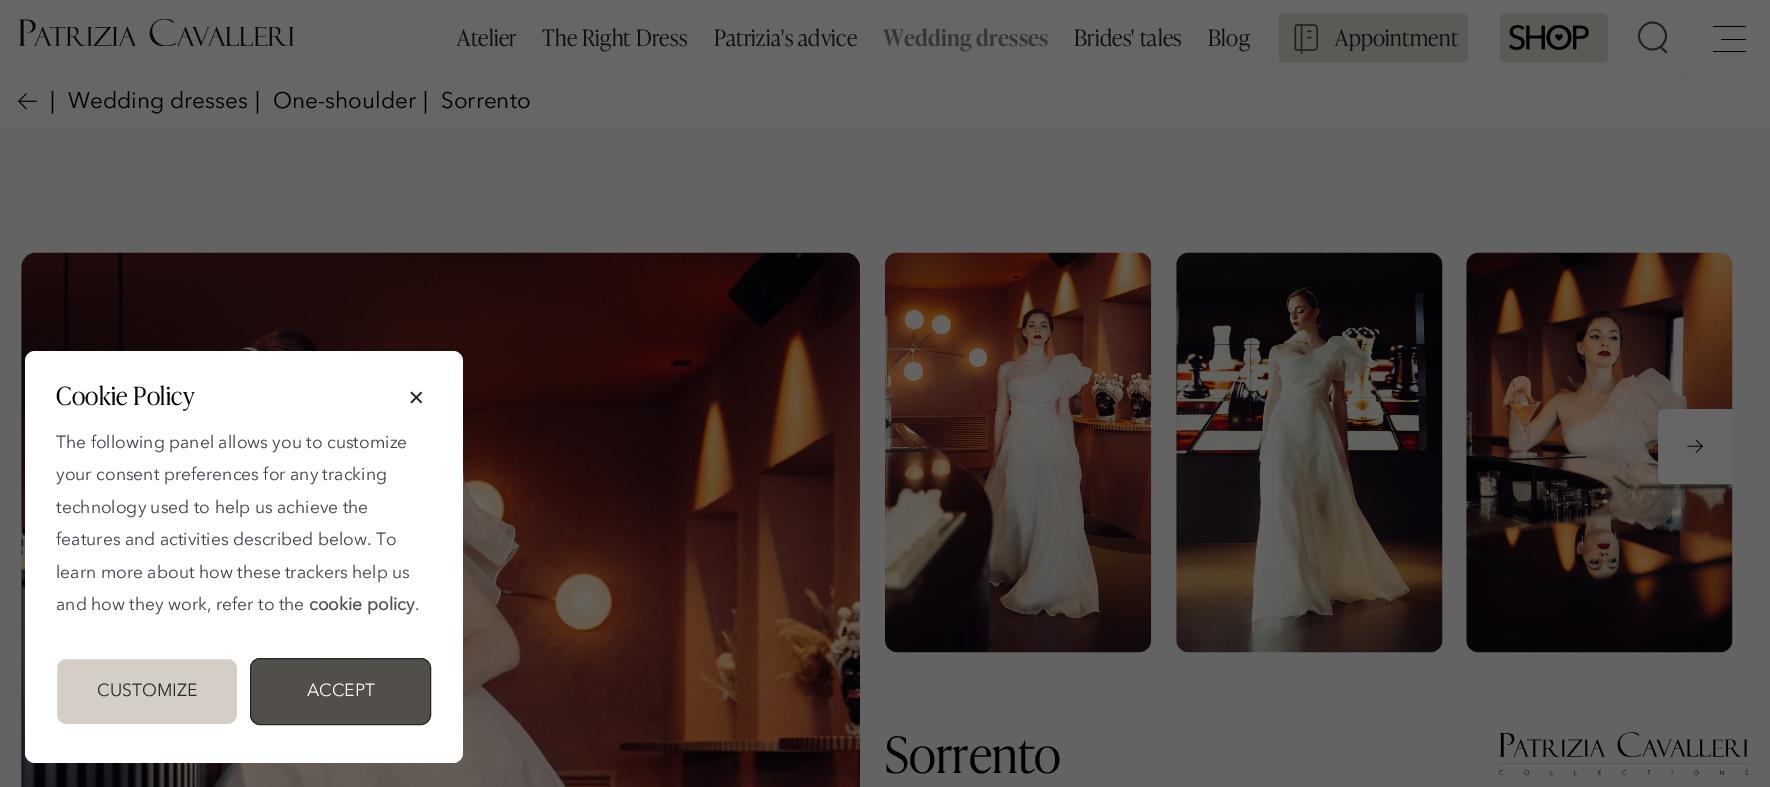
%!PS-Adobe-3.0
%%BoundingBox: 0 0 1770 787
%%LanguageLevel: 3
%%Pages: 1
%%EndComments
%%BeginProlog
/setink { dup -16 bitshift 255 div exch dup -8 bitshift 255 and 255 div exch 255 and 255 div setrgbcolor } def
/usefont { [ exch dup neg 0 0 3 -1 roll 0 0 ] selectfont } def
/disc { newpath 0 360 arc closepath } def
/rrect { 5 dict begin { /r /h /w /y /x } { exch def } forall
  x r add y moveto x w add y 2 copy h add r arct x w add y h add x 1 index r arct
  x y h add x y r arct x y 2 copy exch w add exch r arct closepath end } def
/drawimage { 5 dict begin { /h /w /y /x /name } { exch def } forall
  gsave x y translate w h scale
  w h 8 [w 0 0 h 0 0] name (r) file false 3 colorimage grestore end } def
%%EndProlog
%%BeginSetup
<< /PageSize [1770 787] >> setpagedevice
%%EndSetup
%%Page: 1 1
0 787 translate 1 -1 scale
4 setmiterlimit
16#666666 setink
0 0 1770 787 rectfill
(img1.raw) 19 19 275 27 drawimage
[
    [1713 26 33 1 16#000000]
    [1721 39 25 1 16#000000]
    [1713 51 33 1 16#000000]
] { aload pop setink rectfill } forall
/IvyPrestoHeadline-Light 22.5 usefont
16#12100F setink
457 46 moveto 0.3 0 (Atelier) ashow
542 46 moveto 0.3 0 (The Right Dress) ashow
714 46 moveto 0.3 0 (Patrizia's advice) ashow
/IvyPrestoHeadline-SemiBold 22.5 usefont
16#383633 setink
883 46 moveto 0.3 0 (Wedding dresses) ashow
/IvyPrestoHeadline-Light 22.5 usefont
16#12100F setink
1074 46 moveto 0.3 0 (Brides' tales) ashow
1208 46 moveto 0.3 0 (Blog) ashow
16#5C5A57 setink
1279 13 189 50 6 rrect fill
(img2.raw) 1294 24 24 30 drawimage
16#12100F setink
1335 46 moveto 0.3 0 (Appointment) ashow
16#5C5A57 setink
1500 13 108 50 6 rrect fill
(img3.raw) 1509 25 80 25 drawimage
16#636364 setink
1681 0 1 75 rectfill
16#211F1E setink
1.8 setlinewidth
1652.5 36 13.5 disc stroke
1 setlinecap
1 setlinejoin
1660.5 47 moveto 1666.5 52.5 lineto stroke
[
    [0 128 1770 659 16#636364]
    [0 75 1770 1 16#636364]
    [0 126 1770 1 16#636364]
] { aload pop setink rectfill } forall
(img4.raw) 18 93 19 17 drawimage
/AvenirNext-Regular 22.5 usefont
16#000000 setink
[
    [(|) 50 108]
    [(Wedding dresses) 68 108]
    [(|) 255 108]
    [(One-shoulder) 273 108]
    [(|) 423 108]
    [(Sorrento) 441 108]
] { aload pop moveto show } forall
(img5.raw) 21 252 839 535 drawimage
(img6.raw) 885 252 267 401 drawimage
(img7.raw) 1176 252 267 401 drawimage
(img8.raw) 1466 252 267 401 drawimage
16#666666 setink
1664 409 moveto 1733 409 lineto 1733 484 lineto 1664 484 lineto 1660.5 484 1658 481.5 1658 478 curveto 1658 415 lineto 1658 411.5 1660.5 409 1664 409 curveto closepath fill
(img9.raw) 1687 439 16 14 drawimage
/IvyPrestoHeadline-Light 50 usefont
16#000000 setink
885 773 moveto 0.3 0 (Sorrento) ashow
(img10.raw) 1499 732 249 44 drawimage
16#FFFFFF setink
25 351 438 412 10 rrect fill
/IvyPrestoHeadline-Light 25 usefont
16#000000 setink
56 405 moveto 0.3 0 (Cookie Policy) ashow
(img11.raw) 410 391 13 13 drawimage
/AvenirNext-Regular 17.5 usefont
16#3F4250 setink
[
    [(The following panel allows you to customize) 56 448]
    [(your consent preferences for any tracking) 56 480]
    [(technology used to help us achieve the) 56 513]
    [(features and activities described below. To) 56 545]
    [(learn more about how these trackers help us) 56 578]
    [(and how they work, refer to the) 56 610]
] { aload pop moveto show } forall
/AvenirNext-Bold 17.5 usefont
16#524E4A setink
309 610 moveto (cookie policy) show
/AvenirNext-Regular 17.5 usefont
16#3F4250 setink
415 610 moveto (.) show
16#D5CEC6 setink
56.5 658.5 181 66 9.5 rrect gsave fill grestore
16#FFFFFF setink
1 setlinewidth
0 setlinecap
0 setlinejoin
stroke
16#2D2926 setink
97 696 moveto (CUSTOMIZE) show
16#524E4A setink
250.5 658.5 180 66 9.5 rrect gsave fill grestore
16#252525 setink
stroke
16#FFFFFF setink
307 696 moveto (ACCEPT) show
showpage
%%EOF
